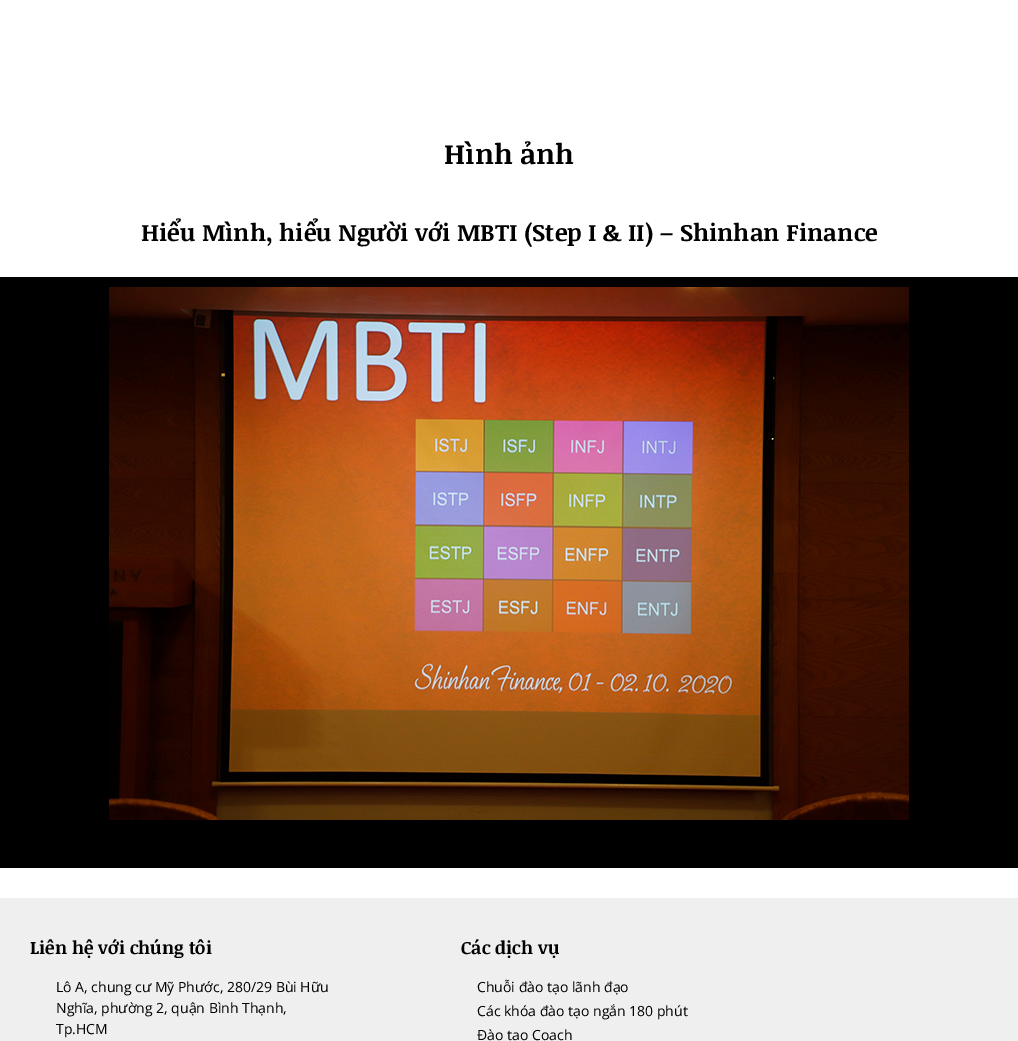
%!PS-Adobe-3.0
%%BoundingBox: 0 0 1018 1041
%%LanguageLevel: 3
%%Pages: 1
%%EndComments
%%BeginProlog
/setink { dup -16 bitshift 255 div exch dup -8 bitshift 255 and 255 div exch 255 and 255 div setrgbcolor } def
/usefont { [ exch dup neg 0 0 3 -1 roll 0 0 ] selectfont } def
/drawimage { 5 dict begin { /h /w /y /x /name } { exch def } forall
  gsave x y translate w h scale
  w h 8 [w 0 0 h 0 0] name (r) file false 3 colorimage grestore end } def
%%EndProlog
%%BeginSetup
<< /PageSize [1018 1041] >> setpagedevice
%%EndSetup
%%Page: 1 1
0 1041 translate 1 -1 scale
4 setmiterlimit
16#FFFFFF setink
0 0 1018 1041 rectfill
/NoticiaText-Bold 28 usefont
16#000000 setink
444 164 moveto (Hình ảnh) show
/NoticiaText-Bold 24 usefont
141 241 moveto (Hiểu Mình, hiểu Người với MBTI \(Step I & II\) – Shinhan Finance) show
0 277 1018 591 rectfill
(img1.raw) 109 287 800 533 drawimage
16#EFEFEF setink
0 898 1018 143 rectfill
/NoticiaText-Bold 18 usefont
16#000000 setink
30 954 moveto (Liên hệ với chúng tôi) show
/OpenSans-Regular 14 usefont
[
    [(Lô A, chung cư Mỹ Phước, 280/29 Bùi Hữu) 56 992]
    [(Nghĩa, phường 2, quận Bình Thạnh,) 56 1013]
    [(Tp.HCM) 56 1034]
] { aload pop moveto show } forall
/NoticiaText-Bold 18 usefont
461 954 moveto (Các dịch vụ) show
/OpenSans-Regular 14 usefont
[
    [(Chuỗi đào tạo lãnh đạo) 477 992]
    [(Các khóa đào tạo ngắn 180 phút) 477 1016]
    [(Đào tạo Coach) 477 1040]
] { aload pop moveto show } forall
showpage
%%EOF
